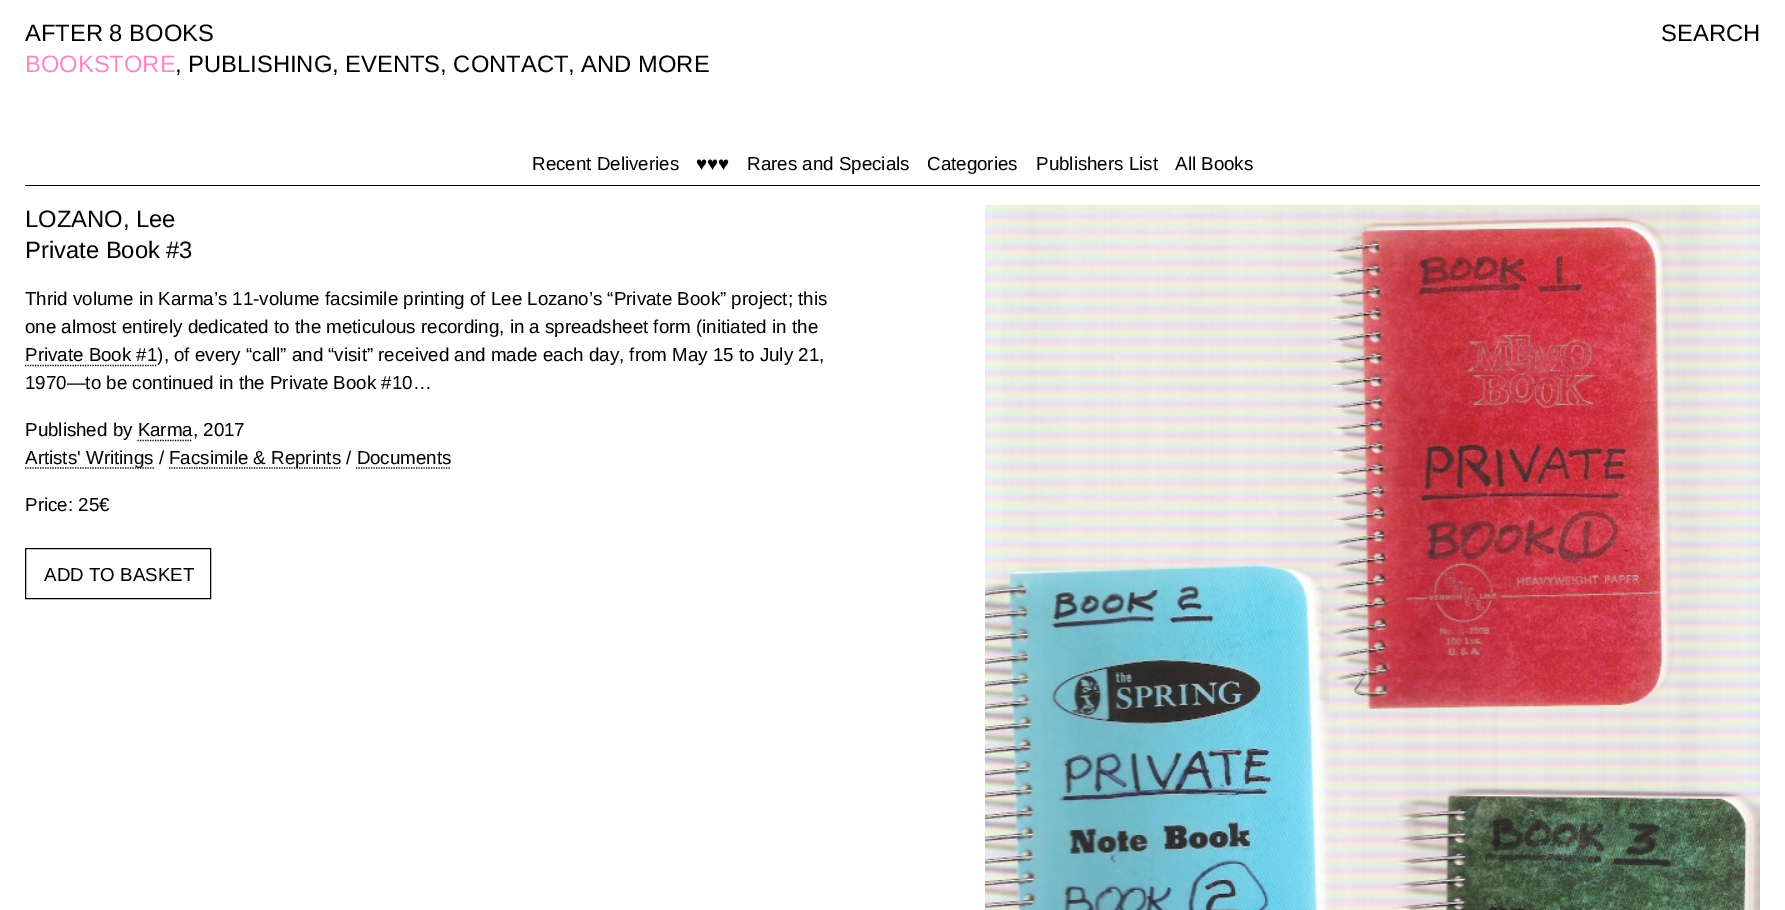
%!PS-Adobe-3.0
%%BoundingBox: 0 0 1785 910
%%LanguageLevel: 3
%%Pages: 1
%%EndComments
%%BeginProlog
/setink { dup -16 bitshift 255 div exch dup -8 bitshift 255 and 255 div exch 255 and 255 div setrgbcolor } def
/usefont { [ exch dup neg 0 0 3 -1 roll 0 0 ] selectfont } def
/drawimage { 5 dict begin { /h /w /y /x /name } { exch def } forall
  gsave x y translate w h scale
  w h 8 [w 0 0 h 0 0] name (r) file false 3 colorimage grestore end } def
%%EndProlog
%%BeginSetup
<< /PageSize [1785 910] >> setpagedevice
%%EndSetup
%%Page: 1 1
0 910 translate 1 -1 scale
4 setmiterlimit
16#FFFFFF setink
0 0 1785 910 rectfill
/LiberationSans-Regular 23.75 usefont
16#000000 setink
25 41 moveto (AFTER 8 BOOKS) show
1661 41 moveto (SEARCH) show
16#FF87C3 setink
25 72 moveto (BOOKSTORE) show
16#000000 setink
175 72 moveto (, PUBLISHING, EVENTS, CONTACT, AND MORE) show
/LiberationSans-Regular 18.75 usefont
[
    [(Recent Deliveries) 532 170]
    [(♥♥♥) 696 170]
    [(Rares and Specials) 747 170]
    [(Categories) 927 170]
    [(Publishers List) 1036 170]
    [(All Books) 1175 170]
] { aload pop moveto show } forall
25 185 1735 1 rectfill
/LiberationSans-Regular 23.75 usefont
25 227 moveto (LOZANO, Lee) show
25 258 moveto (Private Book #3) show
/LiberationSans-Regular 18.75 usefont
25 305 moveto (Thrid volume in Karma’s 11-volume facsimile printing of Lee Lozano’s “Private Book” project; this) show
25 333 moveto (one almost entirely dedicated to the meticulous recording, in a spreadsheet form \(initiated in the) show
1.2 setlinewidth
[1.25 1.25] 0 setdash
25 365.5 moveto 157.5 365.5 lineto stroke
[
    [(Private Book #1\), of every “call” and “visit” received and made each day, from May 15 to July 21,) 25 361]
    [(1970—to be continued in the Private Book #10…) 25 389]
    [(Published by Karma, 2017) 25 436]
] { aload pop moveto show } forall
137.5 440.5 moveto 192.5 440.5 lineto stroke
25 468 moveto 154 468 lineto stroke
25 464 moveto (Artists' Writings /) show
169 468 moveto 341 468 lineto stroke
169 464 moveto (Facsimile & Reprints / Documents) show
356 468 moveto 451 468 lineto stroke
25 511 moveto (Price: 25€) show
1 setlinewidth
[] 0 setdash
25.5 548.5 185 50 rectstroke
44 581 moveto (ADD TO BASKET) show
(img1.raw) 985 205 775 705 drawimage
showpage
%%EOF
